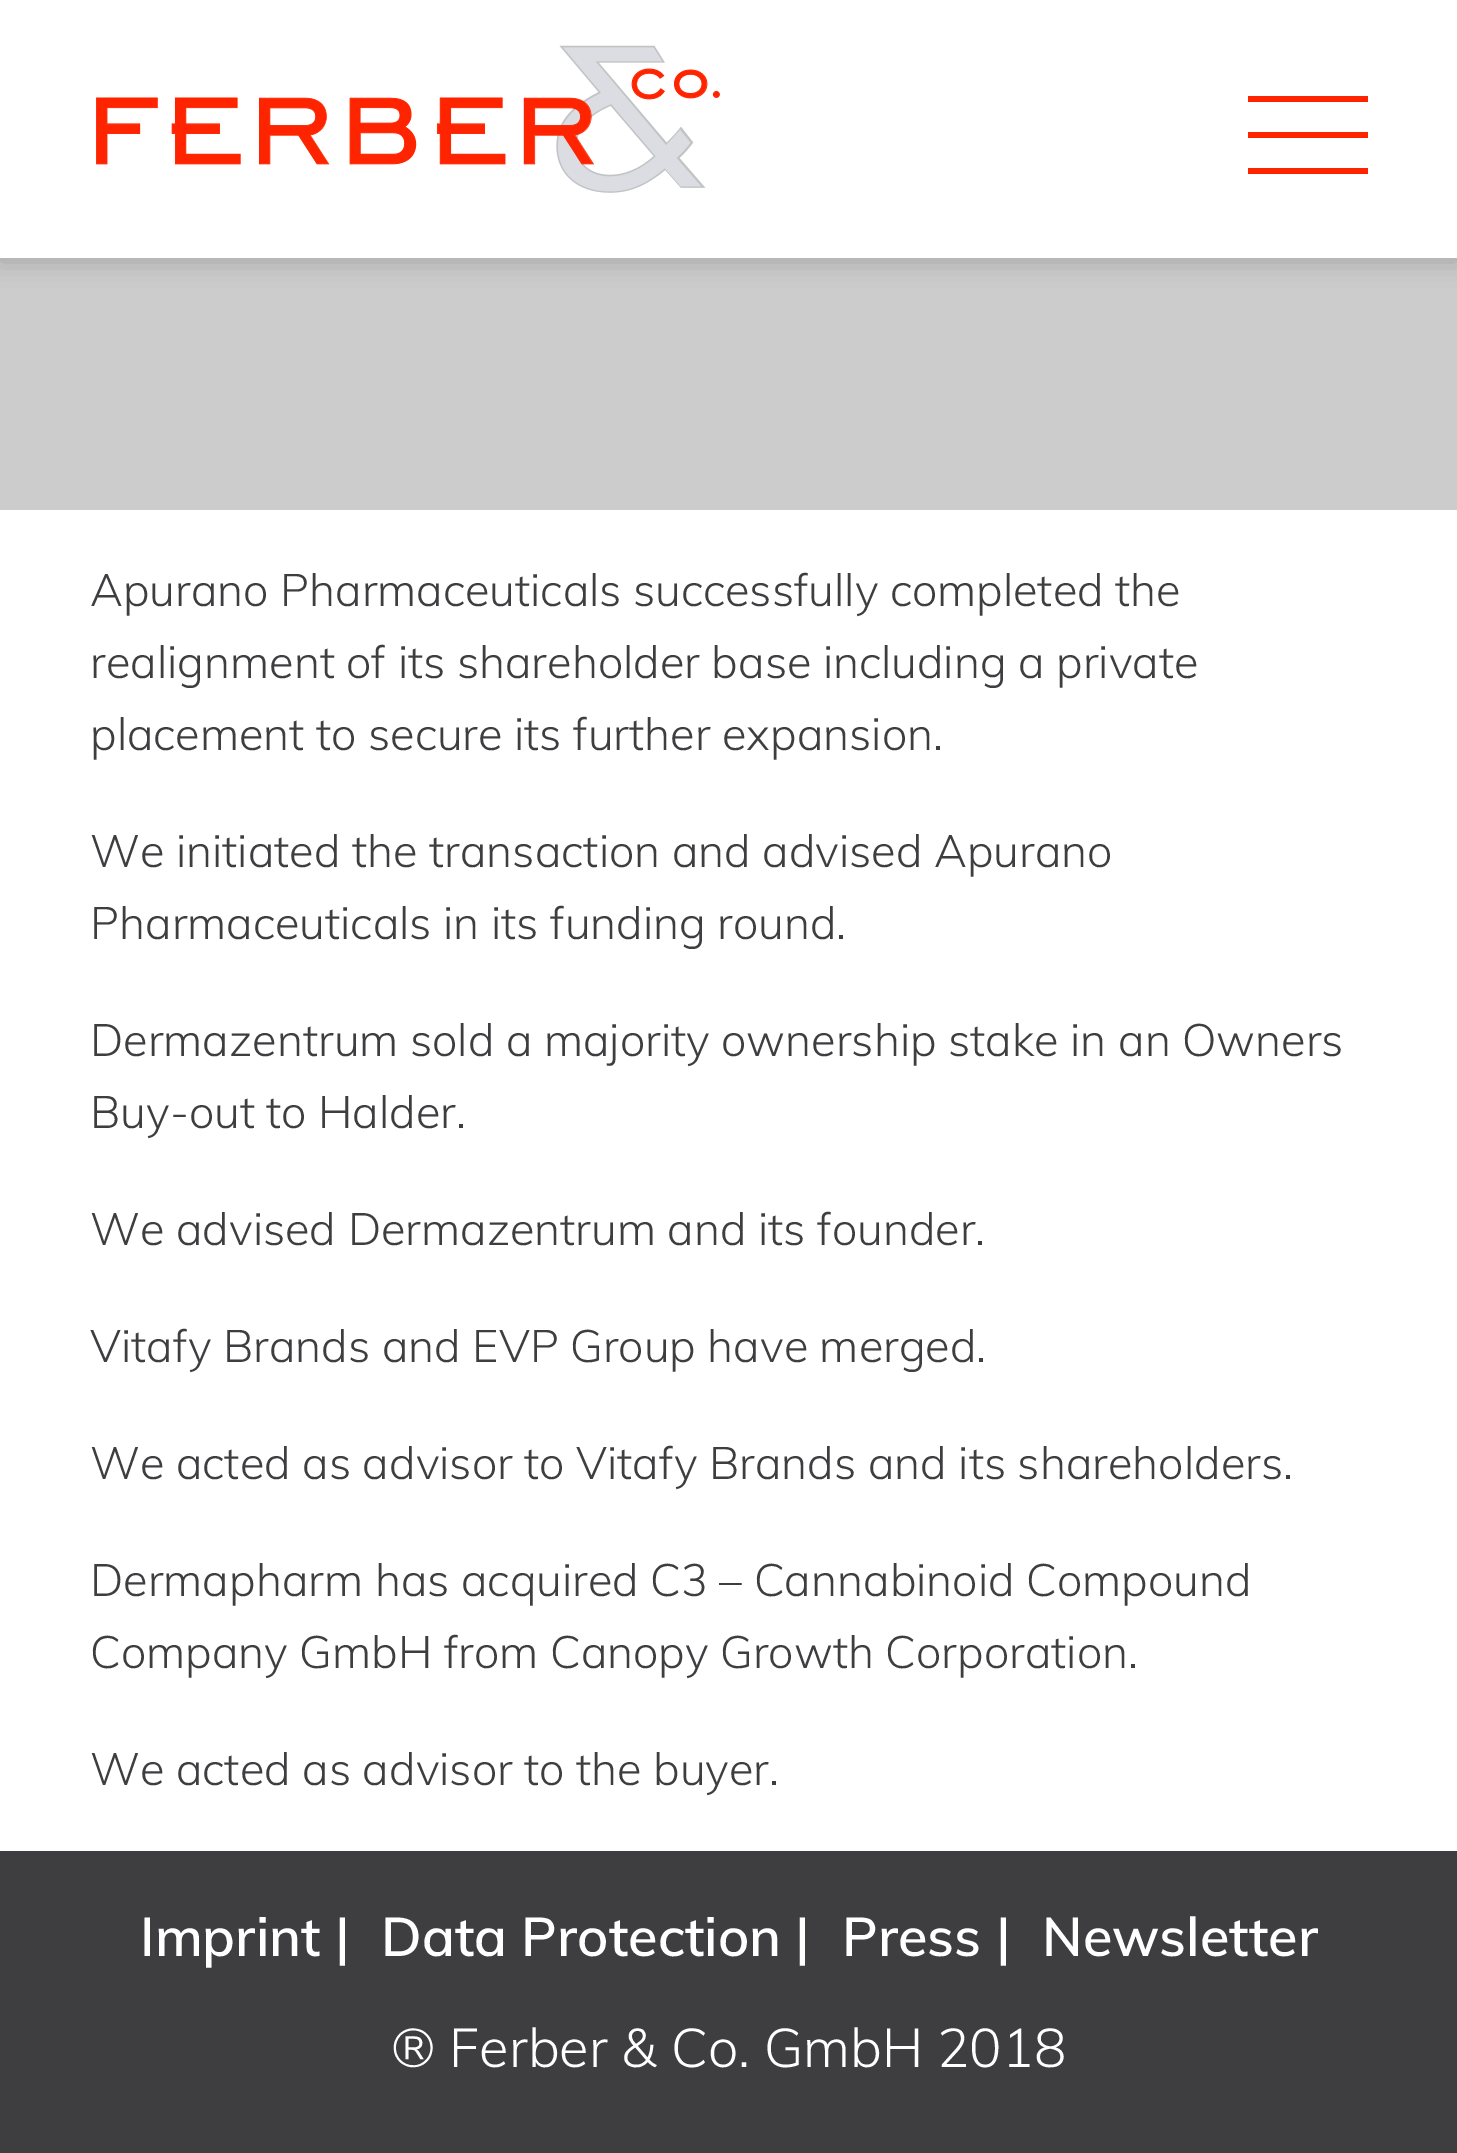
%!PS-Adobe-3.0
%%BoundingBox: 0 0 1457 2153
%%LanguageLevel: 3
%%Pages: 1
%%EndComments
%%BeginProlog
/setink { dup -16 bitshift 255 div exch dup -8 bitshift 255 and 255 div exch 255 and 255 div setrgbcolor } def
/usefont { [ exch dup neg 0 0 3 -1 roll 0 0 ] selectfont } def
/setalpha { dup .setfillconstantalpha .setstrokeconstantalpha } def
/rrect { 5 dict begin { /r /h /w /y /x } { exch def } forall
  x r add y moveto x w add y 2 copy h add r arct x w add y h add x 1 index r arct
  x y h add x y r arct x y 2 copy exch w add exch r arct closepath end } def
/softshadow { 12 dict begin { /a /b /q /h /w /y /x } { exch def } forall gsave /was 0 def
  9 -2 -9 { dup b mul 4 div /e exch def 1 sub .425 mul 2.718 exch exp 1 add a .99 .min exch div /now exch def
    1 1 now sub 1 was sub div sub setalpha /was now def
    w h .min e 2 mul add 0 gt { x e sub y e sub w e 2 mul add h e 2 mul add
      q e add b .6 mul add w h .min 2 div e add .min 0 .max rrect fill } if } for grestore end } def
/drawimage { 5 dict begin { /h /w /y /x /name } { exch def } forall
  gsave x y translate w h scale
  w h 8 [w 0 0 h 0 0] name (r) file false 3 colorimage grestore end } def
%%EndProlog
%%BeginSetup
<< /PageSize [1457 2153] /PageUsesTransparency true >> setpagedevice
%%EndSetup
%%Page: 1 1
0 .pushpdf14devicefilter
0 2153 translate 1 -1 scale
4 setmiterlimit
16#FFFFFF setink
0 0 1457 2153 rectfill
16#CCCCCC setink
0 258 1457 252 rectfill
16#000000 setink
0 3 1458 258 0 12 0.2 softshadow
[
    [0 0 1457 258 16#FFFFFF]
    [1248 96 120 6 16#FF2400]
    [1248 132 120 6 16#FF2400]
    [1248 168 120 6 16#FF2400]
] { aload pop setink rectfill } forall
(img1.raw) 96 45 624 148 drawimage
/Muli-Light 45 usefont
16#3E3D40 setink
[
    [(Apurano Pharmaceuticals successfully completed the) 90 606]
    [(realignment of its shareholder base including a private) 90 678]
    [(placement to secure its further expansion.) 90 750]
    [(We initiated the transaction and advised Apurano) 90 867]
    [(Pharmaceuticals in its funding round.) 90 939]
    [(Dermazentrum sold a majority ownership stake in an Owners) 90 1056]
    [(Buy-out to Halder.) 90 1128]
    [(We advised Dermazentrum and its founder.) 90 1245]
    [(Vitafy Brands and EVP Group have merged.) 90 1362]
    [(We acted as advisor to Vitafy Brands and its shareholders.) 90 1479]
    [(Dermapharm has acquired C3 – Cannabinoid Compound) 90 1596]
    [(Company GmbH from Canopy Growth Corporation.) 90 1668]
    [(We acted as advisor to the buyer.) 90 1785]
] { aload pop moveto show } forall
0 1851 1457 302 rectfill
/Muli-SemiBold 54 usefont
16#FFFFFF setink
[
    [(Imprint |) 140 1956]
    [(Data Protection |) 381 1956]
    [(Press |) 842 1956]
    [(Newsletter) 1042 1956]
] { aload pop moveto show } forall
/Muli-Light 54 usefont
391 2067 moveto (® Ferber & Co. GmbH 2018) show
.poppdf14devicefilter showpage
%%EOF
